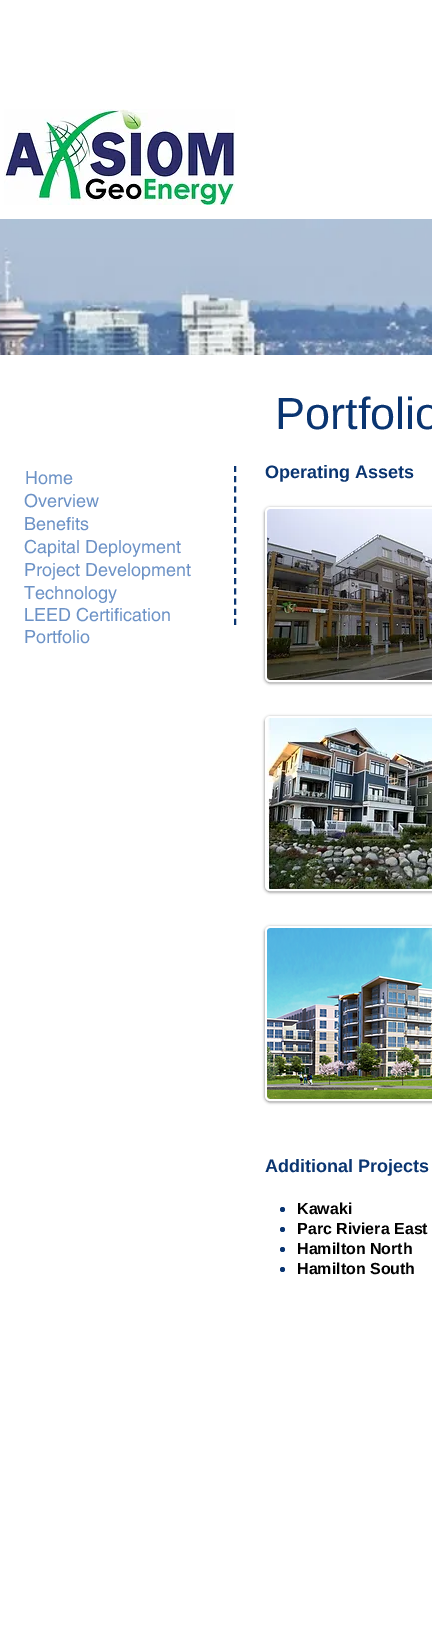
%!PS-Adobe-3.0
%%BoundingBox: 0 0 432 1627
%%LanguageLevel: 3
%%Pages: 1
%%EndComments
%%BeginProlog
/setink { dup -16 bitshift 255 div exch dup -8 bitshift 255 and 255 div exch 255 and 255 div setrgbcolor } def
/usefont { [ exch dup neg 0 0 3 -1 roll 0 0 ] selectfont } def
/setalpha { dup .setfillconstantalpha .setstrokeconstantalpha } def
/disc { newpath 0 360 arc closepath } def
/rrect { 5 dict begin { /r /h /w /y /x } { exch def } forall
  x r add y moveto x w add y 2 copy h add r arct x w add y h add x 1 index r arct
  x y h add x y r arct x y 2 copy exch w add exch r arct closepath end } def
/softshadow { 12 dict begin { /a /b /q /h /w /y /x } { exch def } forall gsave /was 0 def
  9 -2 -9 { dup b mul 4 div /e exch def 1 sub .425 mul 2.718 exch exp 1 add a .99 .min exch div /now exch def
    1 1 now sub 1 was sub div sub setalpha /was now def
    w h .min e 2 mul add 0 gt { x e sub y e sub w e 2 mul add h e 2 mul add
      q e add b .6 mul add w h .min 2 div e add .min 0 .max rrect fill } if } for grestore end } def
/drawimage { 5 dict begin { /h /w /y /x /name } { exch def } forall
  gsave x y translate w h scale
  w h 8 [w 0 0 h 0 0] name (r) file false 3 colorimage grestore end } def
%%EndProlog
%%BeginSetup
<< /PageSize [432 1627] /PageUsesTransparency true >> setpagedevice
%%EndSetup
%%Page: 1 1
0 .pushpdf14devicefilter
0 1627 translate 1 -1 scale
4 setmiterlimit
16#FFFFFF setink
0 0 432 1627 rectfill
(img1.raw) 4 109 231 96 drawimage
(img2.raw) 0 219 432 136 drawimage
/LiberationSans-Regular 45 usefont
16#0A3571 setink
275 429 moveto (Portfolio) show
/helvetica-Regular 18 usefont
16#6C92C6 setink
25 484 moveto (Home) show
16#0A3571 setink
2 setlinewidth
[6 4.2] 0 setdash
235 466 moveto 235 625 lineto stroke
/LiberationSans-Bold 18 usefont
265 478 moveto (Operating Assets) show
/helvetica-Regular 18 usefont
16#6C92C6 setink
24 507 moveto (Overview) show
24 530 moveto (Benefits) show
16#000000 setink
265 508 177 175 5 1.5 0.5 softshadow
16#FFFFFF setink
266 508 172 173 4 rrect gsave fill grestore
[] 0 setdash
stroke
(img3.raw) 267 509 165 171 drawimage
16#6C92C6 setink
[
    [(Capital Deployment) 24 553]
    [(Project Development) 24 576]
    [(Technology) 24 599]
    [(LEED Certification) 24 621]
    [(Portfolio) 24 643]
] { aload pop moveto show } forall
16#000000 setink
265 717 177 175 5 1.5 0.5 softshadow
16#FFFFFF setink
266 717 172 173 4 rrect gsave fill grestore
stroke
(img4.raw) 267 718 165 171 drawimage
16#000000 setink
265 927 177 175 5 1.5 0.5 softshadow
16#FFFFFF setink
266 927 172 173 4 rrect gsave fill grestore
stroke
(img5.raw) 267 928 165 171 drawimage
/LiberationSans-Bold 18 usefont
16#0A3571 setink
265 1172 moveto (Additional Projects) show
282.5 1209.5 2.5 disc fill
/LiberationSans-Bold 16 usefont
16#000000 setink
297 1214 moveto (Kawaki) show
16#0A3571 setink
282.5 1229.5 2.5 disc fill
16#000000 setink
297 1234 moveto (Parc Riviera East) show
16#0A3571 setink
282.5 1249.5 2.5 disc fill
16#000000 setink
297 1254 moveto (Hamilton North) show
16#0A3571 setink
282.5 1269.5 2.5 disc fill
16#000000 setink
297 1274 moveto (Hamilton South) show
.poppdf14devicefilter showpage
%%EOF
